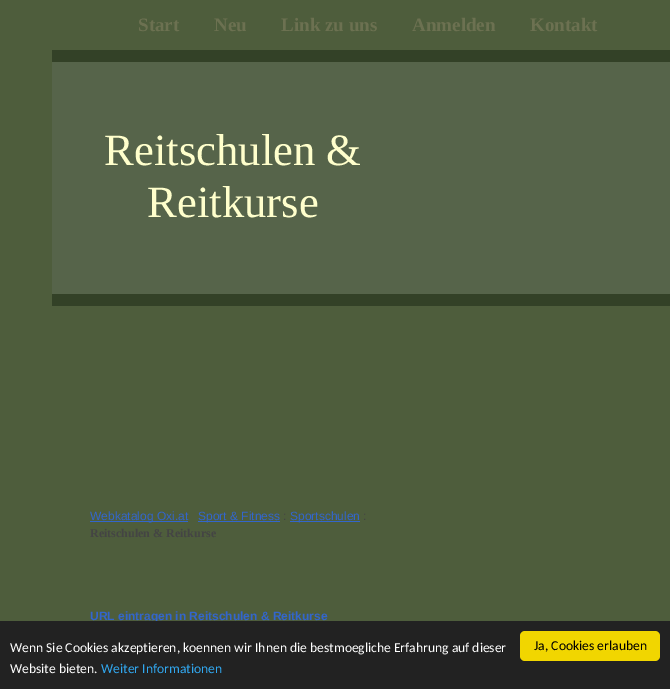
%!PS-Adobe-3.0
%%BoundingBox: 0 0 670 689
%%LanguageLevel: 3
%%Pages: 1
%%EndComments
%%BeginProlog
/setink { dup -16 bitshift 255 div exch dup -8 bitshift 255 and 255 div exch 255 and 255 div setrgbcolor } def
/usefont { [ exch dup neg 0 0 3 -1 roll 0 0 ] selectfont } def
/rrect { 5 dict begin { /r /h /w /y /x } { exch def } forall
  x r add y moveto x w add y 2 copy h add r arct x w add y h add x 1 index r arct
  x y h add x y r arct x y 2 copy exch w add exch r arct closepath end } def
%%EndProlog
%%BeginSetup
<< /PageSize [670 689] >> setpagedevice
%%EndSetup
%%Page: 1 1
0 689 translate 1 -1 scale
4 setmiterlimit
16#4E5D3C setink
0 0 670 689 rectfill
/LiberationSerif-Bold 19 usefont
16#6C7151 setink
[
    [(Start) 138 31]
    [(Neu) 214 31]
    [(Link zu uns) 281 31]
    [(Anmelden) 412 31]
    [(Kontakt) 530 31]
] { aload pop moveto show } forall
16#334127 setink
52 50 618 12 rectfill
16#56644A setink
52 62 618 232 rectfill
/LiberationSerif-Regular 44.75 usefont
16#FFFFCC setink
104 165 moveto (Reitschulen &) show
147 217 moveto (Reitkurse) show
16#334127 setink
52 294 618 12 rectfill
16#3366CC setink
90 521 98 1 rectfill
/LiberationSans-Regular 12 usefont
90 520 moveto (Webkatalog Oxi.at) show
198 521 82 1 rectfill
198 520 moveto (Sport & Fitness) show
16#444444 setink
283 520 moveto (:) show
16#3366CC setink
290 521 70 1 rectfill
290 520 moveto (Sportschulen) show
16#444444 setink
363 520 moveto (:) show
/LiberationSerif-Bold 12 usefont
90 537 moveto (Reitschulen & Reitkurse) show
/LiberationSans-Bold 12 usefont
16#3366CC setink
90 620 moveto (URL eintragen in Reitschulen & Reitkurse) show
16#222222 setink
0 621 670 68 rectfill
/Carlito-Regular 13.6 usefont
16#FFFFFF setink
10 652 moveto (Wenn Sie Cookies akzeptieren, koennen wir Ihnen die bestmoegliche Erfahrung auf dieser) show
10 673 moveto (Website bieten.) show
16#31A8F0 setink
101 673 moveto (Weiter Informationen) show
16#F1D600 setink
520 631 140 30 5 rrect fill
16#000000 setink
534 650 moveto (Ja, Cookies erlauben) show
showpage
%%EOF
